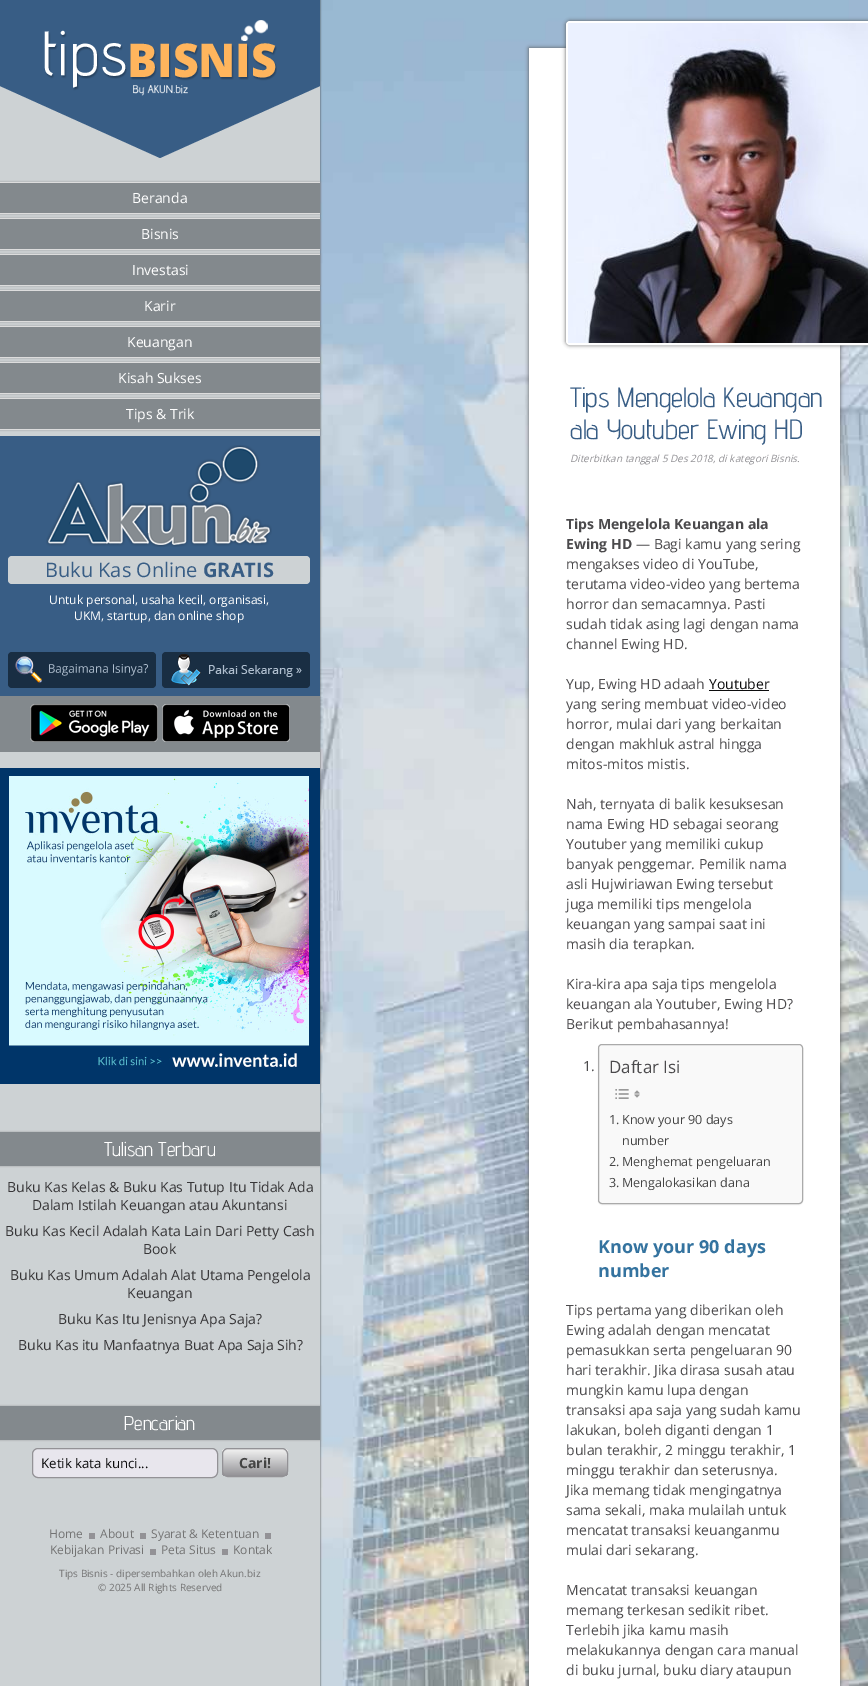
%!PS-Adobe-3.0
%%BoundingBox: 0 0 868 1686
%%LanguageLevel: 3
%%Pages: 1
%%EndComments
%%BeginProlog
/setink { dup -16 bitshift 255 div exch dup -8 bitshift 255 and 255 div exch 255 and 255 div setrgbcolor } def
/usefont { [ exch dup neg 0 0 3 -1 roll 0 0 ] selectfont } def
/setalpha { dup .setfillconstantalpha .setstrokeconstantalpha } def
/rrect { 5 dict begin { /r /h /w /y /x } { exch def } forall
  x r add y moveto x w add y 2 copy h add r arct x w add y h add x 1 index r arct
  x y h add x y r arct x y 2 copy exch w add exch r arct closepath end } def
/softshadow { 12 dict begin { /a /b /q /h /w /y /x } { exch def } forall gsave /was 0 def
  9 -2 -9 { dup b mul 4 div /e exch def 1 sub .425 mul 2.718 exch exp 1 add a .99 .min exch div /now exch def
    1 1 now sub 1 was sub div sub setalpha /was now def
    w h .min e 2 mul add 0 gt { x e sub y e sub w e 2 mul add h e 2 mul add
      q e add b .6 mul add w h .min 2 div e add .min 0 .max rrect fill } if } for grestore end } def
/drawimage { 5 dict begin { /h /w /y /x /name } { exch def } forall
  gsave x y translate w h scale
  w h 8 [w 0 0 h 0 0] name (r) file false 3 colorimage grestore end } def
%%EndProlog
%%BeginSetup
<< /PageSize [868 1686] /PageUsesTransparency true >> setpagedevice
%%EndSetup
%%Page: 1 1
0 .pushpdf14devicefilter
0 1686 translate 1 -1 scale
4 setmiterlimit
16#FFFFFF setink
0 0 868 1686 rectfill
(img1.raw) 320 0 548 1686 drawimage
16#333333 setink
0 0 320 1686 0 1 1 softshadow
16#CDD2D4 setink
0 86 320 1600 rectfill
16#385D85 setink
0 0 320 86 rectfill
0 86 moveto 320 86 lineto 160 158 lineto closepath fill
(img2.raw) 44 20 233 76 drawimage
16#999999 setink
0 182 320 32 0 1 1 softshadow
[
    [0 183 320 30 16#83898D]
    [0 182 320 1 16#DDDDDD]
    [0 213 320 1 16#DDDDDD]
] { aload pop setink rectfill } forall
/OpenSans-Regular 14 usefont
16#FFFFFF setink
132 203 moveto (Beranda) show
16#999999 setink
0 218 320 32 0 1 1 softshadow
[
    [0 219 320 30 16#83898D]
    [0 218 320 1 16#DDDDDD]
    [0 249 320 1 16#DDDDDD]
] { aload pop setink rectfill } forall
16#FFFFFF setink
141 239 moveto (Bisnis) show
16#999999 setink
0 254 320 32 0 1 1 softshadow
[
    [0 255 320 30 16#83898D]
    [0 254 320 1 16#DDDDDD]
    [0 285 320 1 16#DDDDDD]
] { aload pop setink rectfill } forall
16#FFFFFF setink
132 275 moveto (Investasi) show
16#999999 setink
0 290 320 32 0 1 1 softshadow
[
    [0 291 320 30 16#83898D]
    [0 290 320 1 16#DDDDDD]
    [0 321 320 1 16#DDDDDD]
] { aload pop setink rectfill } forall
16#FFFFFF setink
144 311 moveto (Karir) show
16#999999 setink
0 326 320 32 0 1 1 softshadow
[
    [0 327 320 30 16#83898D]
    [0 326 320 1 16#DDDDDD]
    [0 357 320 1 16#DDDDDD]
] { aload pop setink rectfill } forall
16#FFFFFF setink
127 347 moveto (Keuangan) show
16#999999 setink
0 362 320 32 0 1 1 softshadow
[
    [0 363 320 30 16#83898D]
    [0 362 320 1 16#DDDDDD]
    [0 393 320 1 16#DDDDDD]
] { aload pop setink rectfill } forall
16#FFFFFF setink
118 383 moveto (Kisah Sukses) show
16#999999 setink
0 398 320 32 0 1 1 softshadow
[
    [0 399 320 30 16#83898D]
    [0 398 320 1 16#DDDDDD]
    [0 429 320 1 16#DDDDDD]
] { aload pop setink rectfill } forall
16#FFFFFF setink
126 419 moveto (Tips & Trik) show
16#385D85 setink
0 436 320 260 rectfill
(img3.raw) 46 445 226 102 drawimage
16#CDD2D4 setink
8 556 302 28 4 rrect fill
/OpenSans-Regular 20 usefont
16#385D85 setink
45 577 moveto (Buku Kas Online) show
/OpenSans-Bold 20 usefont
203 577 moveto (GRATIS) show
/OpenSans-Regular 12 usefont
16#FFFFFF setink
49 604 moveto (Untuk personal, usaha kecil, organisasi,) show
74 620 moveto (UKM, startup, dan online shop) show
16#192E43 setink
8 652 148 36 4 rrect fill
(img4.raw) 15 656 133 27 drawimage
162 652 148 36 4 rrect fill
(img5.raw) 171 654 131 32 drawimage
16#83898D setink
0 696 320 56 rectfill
(img6.raw) 30 704 128 38 drawimage
(img7.raw) 162 704 128 38 drawimage
16#003569 setink
0 768 320 316 rectfill
(img8.raw) 9 776 300 292 drawimage
16#999999 setink
0 1132 320 34 0 1 1 softshadow
16#83898D setink
0 1132 320 34 rectfill
/AdventPro-Regular 20 usefont
16#FFFFFF setink
104 1156 moveto (Tulisan Terbaru) show
/OpenSans-Regular 14 usefont
16#373638 setink
[
    [(Buku Kas Kelas & Buku Kas Tutup Itu Tidak Ada) 7 1192]
    [(Dalam Istilah Keuangan atau Akuntansi) 32 1210]
    [(Buku Kas Kecil Adalah Kata Lain Dari Petty Cash) 5 1236]
    [(Book) 143 1254]
    [(Buku Kas Umum Adalah Alat Utama Pengelola) 10 1280]
    [(Keuangan) 127 1298]
    [(Buku Kas Itu Jenisnya Apa Saja?) 58 1324]
    [(Buku Kas itu Manfaatnya Buat Apa Saja Sih?) 18 1350]
] { aload pop moveto show } forall
16#999999 setink
0 1406 320 34 0 1 1 softshadow
16#83898D setink
0 1406 320 34 rectfill
/AdventPro-Regular 20 usefont
16#FFFFFF setink
124 1430 moveto (Pencarian) show
16#E8E6ED setink
32.5 1448.5 185 29 5.5 rrect gsave fill grestore
16#939296 setink
stroke
/OpenSans-Regular 13.25 usefont
16#0C0C0D setink
41 1468 moveto (Ketik kata kunci...) show
gsave
222 1448 66 29 6 rrect clip newpath
gsave 222 1449 moveto 288 1449 lineto 288 1476 lineto 222 1476 lineto closepath clip newpath
<< /ShadingType 2 /ColorSpace /DeviceRGB /Coords [223 1449 223 1476] /Extend [true true] /Function << /FunctionType 3 /Domain [0 1] /Functions [<< /FunctionType 2 /Domain [0 1] /C0 [0.929 0.929 0.929] /C1 [0.929 0.929 0.929] /N 1 >> << /FunctionType 2 /Domain [0 1] /C0 [0.929 0.929 0.929] /C1 [0.576 0.573 0.588] /N 1 >>] /Bounds [0.05] /Encode [0 1 0 1] >> >> shfill grestore
grestore
16#E3E3E3 setink
228 1450 moveto 282 1450 lineto 285 1450 287 1452 287 1455 curveto 287 1447 279 1449 273 1449 curveto 237 1449 lineto 231 1449 223 1447 223 1455 curveto 223 1452 225 1450 228 1450 curveto closepath fill
16#939296 setink
222.5 1448.5 65 28 5.5 rrect stroke
/OpenSans-Bold 14 usefont
16#444444 setink
239 1468 moveto (Cari!) show
16#939296 setink
89 1533 6 6 rectfill
/OpenSans-Regular 12 usefont
16#737373 setink
49 1538 moveto (Home) show
16#939296 setink
140 1533 6 6 rectfill
16#737373 setink
100 1538 moveto (About) show
16#939296 setink
265 1533 6 6 rectfill
16#737373 setink
151 1538 moveto (Syarat & Ketentuan) show
16#939296 setink
150 1549 6 6 rectfill
16#737373 setink
50 1554 moveto (Kebijakan Privasi) show
16#939296 setink
222 1549 6 6 rectfill
16#737373 setink
161 1554 moveto (Peta Situs) show
233 1554 moveto (Kontak) show
/OpenSans-Regular 10 usefont
59 1577 moveto (Tips Bisnis - dipersembahkan oleh Akun.biz) show
98 1591 moveto (© 2025 All Rights Reserved) show
16#555555 setink
529 48 311 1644 0 2 1 softshadow
16#FFFFFF setink
529 48 311 1638 rectfill
16#555555 setink
566 21 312 324 4 2 1 softshadow
16#FFFFFF setink
2 setlinewidth
567 22 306 322 3 rrect stroke
(img9.raw) 568 23 300 320 drawimage
/AdventPro-Regular 28 usefont
16#385D85 setink
570 407 moveto (Tips Mengelola Keuangan) show
570 439 moveto (ala Youtuber Ewing HD) show
/OpenSans-Italic 10 usefont
16#939296 setink
570 462 moveto (Diterbitkan tanggal 5 Des 2018, di kategori Bisnis.) show
/OpenSans-Bold 14 usefont
16#4B4A4C setink
566 529 moveto (Tips Mengelola Keuangan ala) show
566 549 moveto (Ewing HD) show
/OpenSans-Regular 14 usefont
[
    [(— Bagi kamu yang sering) 636 549]
    [(mengakses video di YouTube,) 566 569]
    [(terutama video-video yang bertema) 566 589]
    [(horror dan semacamnya. Pasti) 566 609]
    [(sudah tidak asing lagi dengan nama) 566 629]
    [(channel Ewing HD.) 566 649]
    [(Yup, Ewing HD adaah) 566 689]
] { aload pop moveto show } forall
16#0C0C0D setink
709 689 moveto (Youtuber) show
709 690 60 1 rectfill
16#4B4A4C setink
[
    [(yang sering membuat video-video) 566 709]
    [(horror, mulai dari yang berkaitan) 566 729]
    [(dengan makhluk astral hingga) 566 749]
    [(mitos-mitos mistis.) 566 769]
    [(Nah, ternyata di balik kesuksesan) 566 809]
    [(nama Ewing HD sebagai seorang) 566 829]
    [(Youtuber yang memiliki cukup) 566 849]
    [(banyak penggemar. Pemilik nama) 566 869]
    [(asli Hujwiriawan Ewing tersebut) 566 889]
    [(juga memiliki tips mengelola) 566 909]
    [(keuangan yang sampai saat ini) 566 929]
    [(masih dia terapkan.) 566 949]
    [(Kira-kira apa saja tips mengelola) 566 989]
    [(keuangan ala Youtuber, Ewing HD?) 566 1009]
    [(Berikut pembahasannya!) 566 1029]
    [(1.) 583 1071]
] { aload pop moveto show } forall
16#000000 setink
598 1045 205 160 4 0.5 0.05 softshadow
16#F9F9F9 setink
598.5 1044.5 204 159 3.5 rrect gsave fill grestore
16#AAAAAA setink
1 setlinewidth
stroke
/OpenSans-Regular 17 usefont
16#4B4A4C setink
609 1073 moveto (Daftar Isi) show
(img10.raw) 615 1089 14 10 drawimage
(img11.raw) 634 1090 6 8 drawimage
/OpenSans-Regular 12.6 usefont
16#444444 setink
[
    [(1.) 609 1124]
    [(Know your 90 days) 622 1124]
    [(number) 622 1145]
    [(2.) 609 1166]
    [(Menghemat pengeluaran) 622 1166]
    [(3.) 609 1187]
    [(Mengalokasikan dana) 622 1187]
] { aload pop moveto show } forall
/OpenSans-Bold 18 usefont
16#34739F setink
598 1253 moveto (Know your 90 days) show
598 1277 moveto (number) show
/OpenSans-Regular 14 usefont
16#4B4A4C setink
[
    [(Tips pertama yang diberikan oleh) 566 1315]
    [(Ewing adalah dengan mencatat) 566 1335]
    [(pemasukkan serta pengeluaran 90) 566 1355]
    [(hari terakhir. Jika dirasa susah atau) 566 1375]
    [(mungkin kamu lupa dengan) 566 1395]
    [(transaksi apa saja yang sudah kamu) 566 1415]
    [(lakukan, boleh diganti dengan 1) 566 1435]
    [(bulan terakhir, 2 minggu terakhir, 1) 566 1455]
    [(minggu terakhir dan seterusnya.) 566 1475]
    [(Jika memang tidak mengingatnya) 566 1495]
    [(sama sekali, maka mulailah untuk) 566 1515]
    [(mencatat transaksi keuanganmu) 566 1535]
    [(mulai dari sekarang.) 566 1555]
    [(Mencatat transaksi keuangan) 566 1595]
    [(memang terkesan sedikit ribet.) 566 1615]
    [(Terlebih jika kamu masih) 566 1635]
    [(melakukannya dengan cara manual) 566 1655]
    [(di buku jurnal, buku diary ataupun) 566 1675]
] { aload pop moveto show } forall
.poppdf14devicefilter showpage
%%EOF
